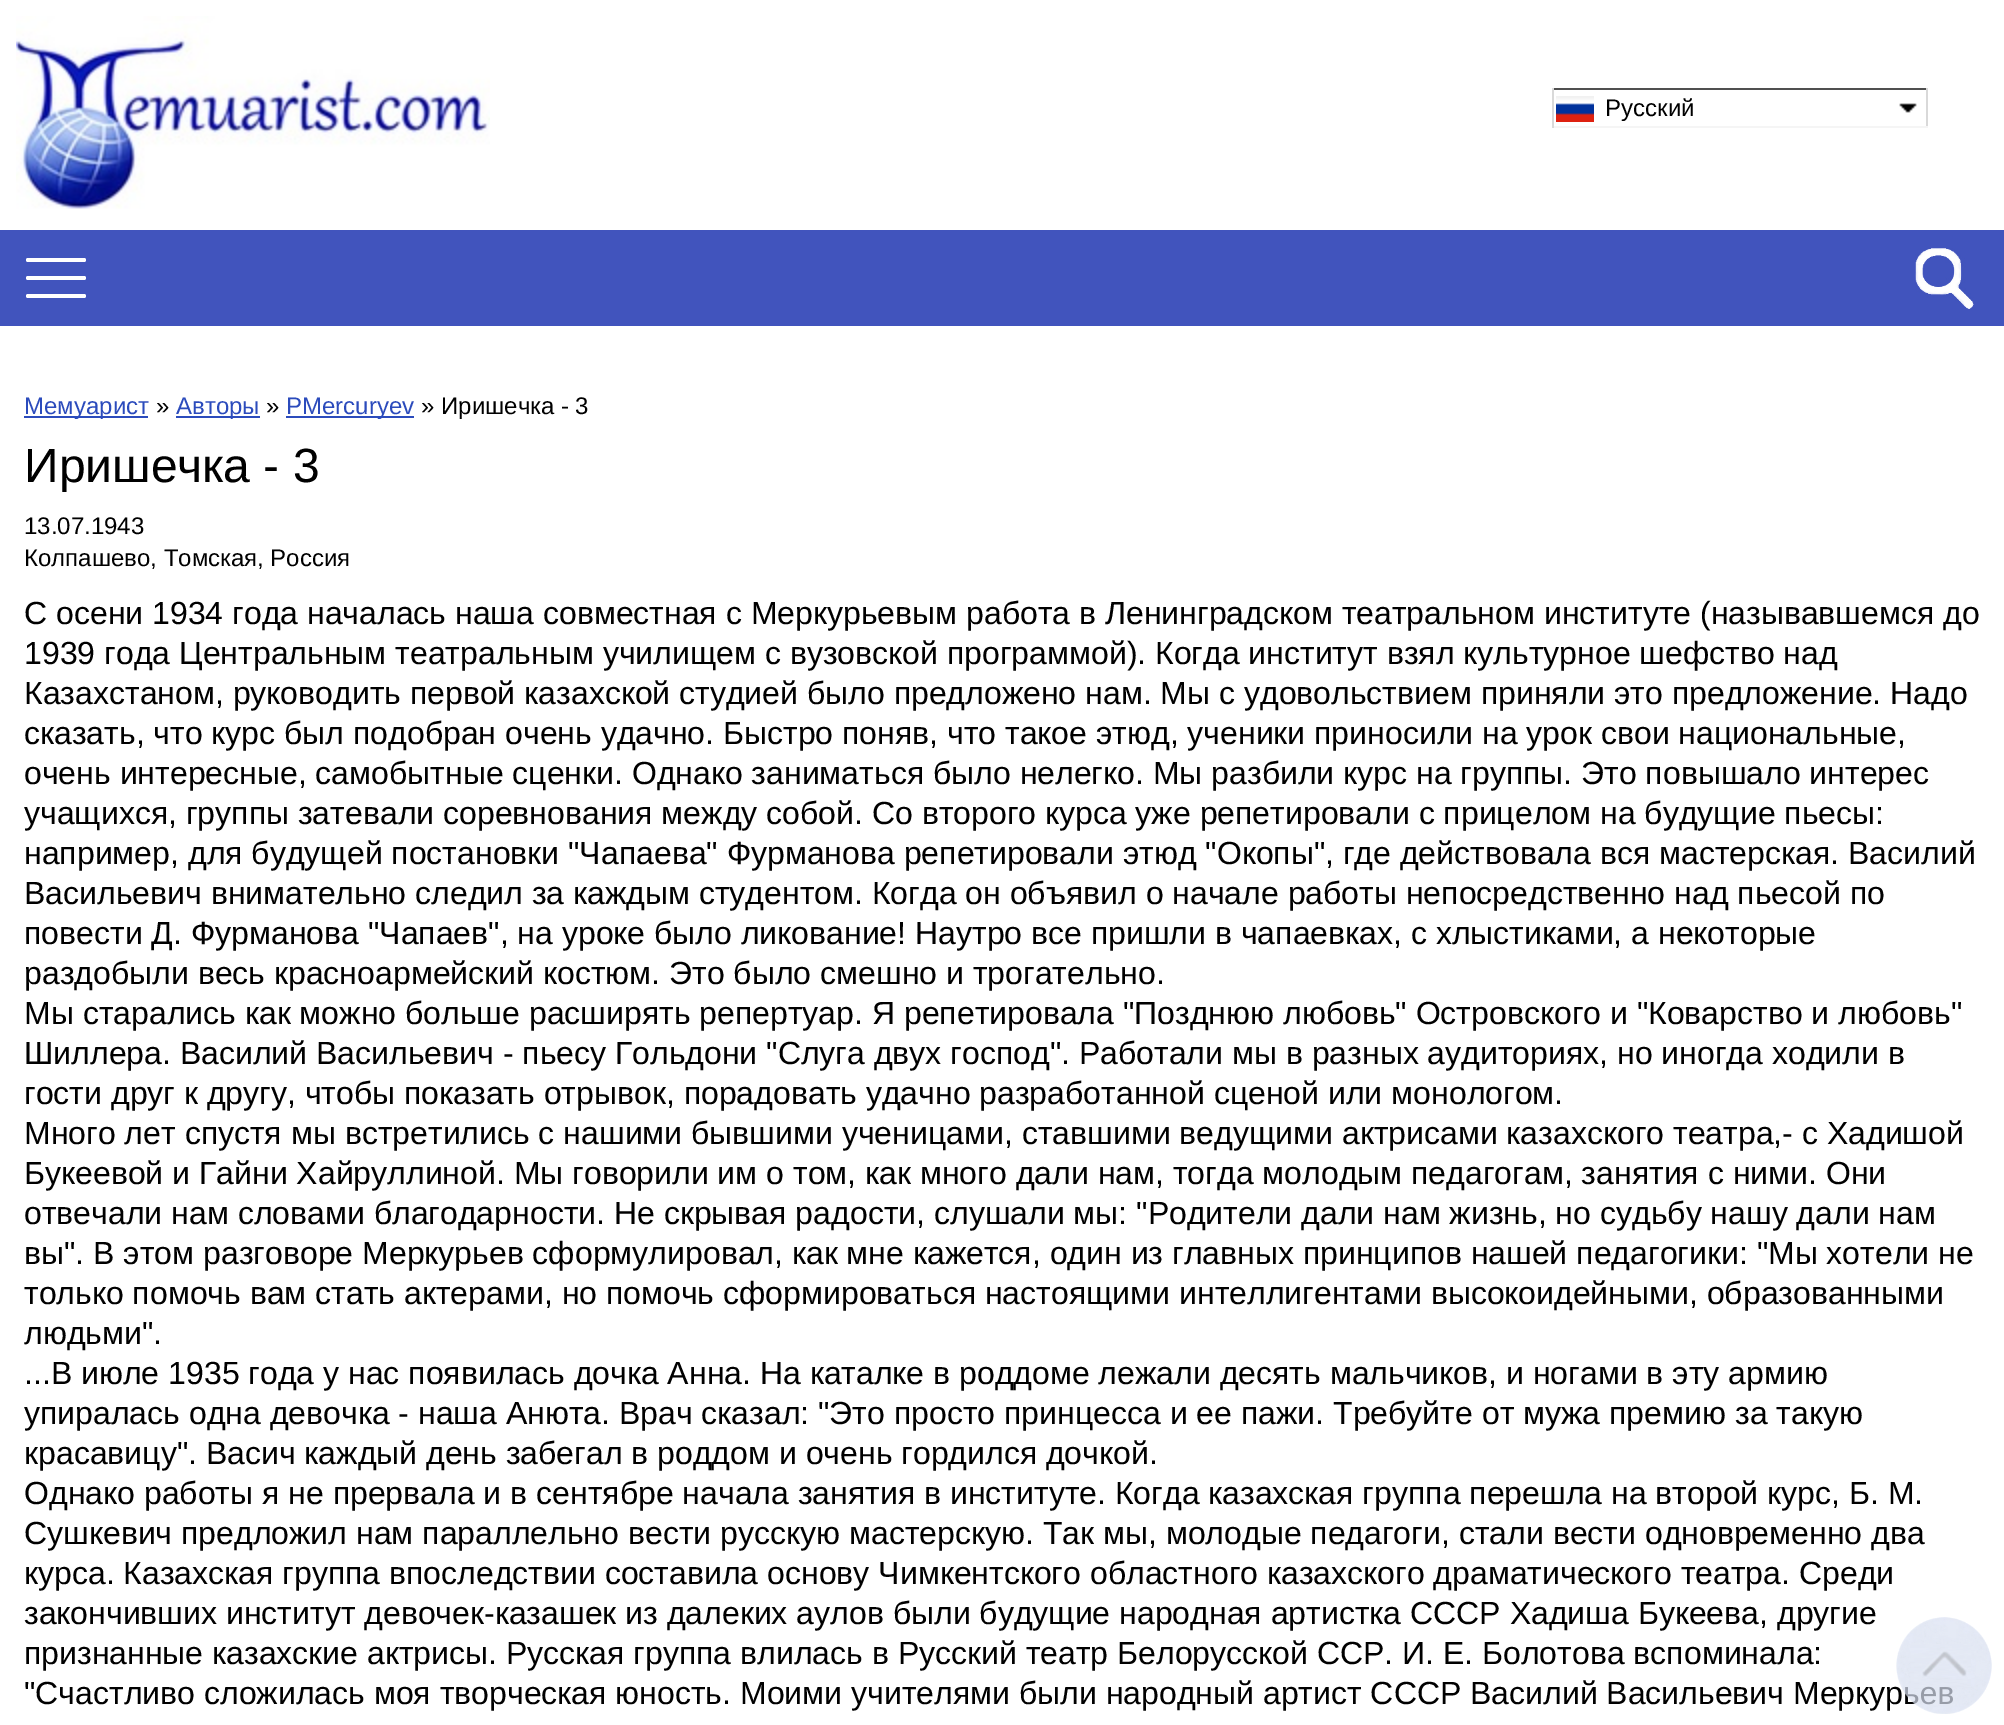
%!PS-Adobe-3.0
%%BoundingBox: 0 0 2004 1725
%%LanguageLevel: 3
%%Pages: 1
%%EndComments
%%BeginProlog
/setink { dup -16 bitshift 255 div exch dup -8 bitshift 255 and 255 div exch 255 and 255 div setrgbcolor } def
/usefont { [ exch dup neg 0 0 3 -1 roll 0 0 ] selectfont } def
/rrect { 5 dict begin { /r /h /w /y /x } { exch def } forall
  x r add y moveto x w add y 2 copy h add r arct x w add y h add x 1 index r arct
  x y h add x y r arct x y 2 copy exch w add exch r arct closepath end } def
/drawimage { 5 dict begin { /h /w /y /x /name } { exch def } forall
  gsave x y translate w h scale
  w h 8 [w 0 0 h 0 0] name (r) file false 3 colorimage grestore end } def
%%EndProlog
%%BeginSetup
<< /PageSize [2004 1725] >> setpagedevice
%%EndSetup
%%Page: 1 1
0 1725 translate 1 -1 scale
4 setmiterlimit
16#FFFFFF setink
0 0 2004 1725 rectfill
(img1.raw) 16 16 474 193 drawimage
[
    [1552 88 376 2 16#505050]
    [1926 88 2 40 16#D9D9D9]
    [1552 126 376 2 16#F5F5F5]
    [1552 88 2 40 16#D9D9D9]
] { aload pop setink rectfill } forall
(img2.raw) 1556 96 38 26 drawimage
/LiberationSans-Regular 24 usefont
16#000000 setink
1605 116 moveto (Русский) show
(img3.raw) 1899 103 18 10 drawimage
16#4154BD setink
0 230 2004 96 rectfill
16#FFFFFF setink
26 276 60 4 2 rrect fill
26 258 60 4 2 rrect fill
26 294 60 4 2 rrect fill
(img4.raw) 1915 248 59 61 drawimage
16#2B4BBC setink
24 416 124 2 rectfill
24 414 moveto (Мемуарист) show
16#000000 setink
156 414 moveto (») show
16#2B4BBC setink
176 416 84 2 rectfill
176 414 moveto (Авторы) show
16#000000 setink
266 414 moveto (») show
16#2B4BBC setink
286 416 128 2 rectfill
286 414 moveto (PMercuryev) show
16#000000 setink
421 414 moveto (» Иришечка - 3) show
/LiberationSans-Regular 48 usefont
24 482 moveto (Иришечка - 3) show
/LiberationSans-Regular 24 usefont
24 534 moveto (13.07.1943) show
24 566 moveto (Колпашево, Томская, Россия) show
/LiberationSans-Regular 32 usefont
[
    [(С осени 1934 года началась наша совместная с Меркурьевым работа в Ленинградском театральном институте \(называвшемся до) 24 624]
    [(1939 года Центральным театральным училищем с вузовской программой\). Когда институт взял культурное шефство над) 24 664]
    [(Казахстаном, руководить первой казахской студией было предложено нам. Мы с удовольствием приняли это предложение. Надо) 24 704]
    [(сказать, что курс был подобран очень удачно. Быстро поняв, что такое этюд, ученики приносили на урок свои национальные,) 24 744]
    [(очень интересные, самобытные сценки. Однако заниматься было нелегко. Мы разбили курс на группы. Это повышало интерес) 24 784]
    [(учащихся, группы затевали соревнования между собой. Со второго курса уже репетировали с прицелом на будущие пьесы:) 24 824]
    [(например, для будущей постановки "Чапаева" Фурманова репетировали этюд "Окопы", где действовала вся мастерская. Василий) 24 864]
    [(Васильевич внимательно следил за каждым студентом. Когда он объявил о начале работы непосредственно над пьесой по) 24 904]
    [(повести Д. Фурманова "Чапаев", на уроке было ликование! Наутро все пришли в чапаевках, с хлыстиками, а некоторые) 24 944]
    [(раздобыли весь красноармейский костюм. Это было смешно и трогательно.) 24 984]
    [(Мы старались как можно больше расширять репертуар. Я репетировала "Позднюю любовь" Островского и "Коварство и любовь") 24 1024]
    [(Шиллера. Василий Васильевич - пьесу Гольдони "Слуга двух господ". Работали мы в разных аудиториях, но иногда ходили в) 24 1064]
    [(гости друг к другу, чтобы показать отрывок, порадовать удачно разработанной сценой или монологом.) 24 1104]
    [(Много лет спустя мы встретились с нашими бывшими ученицами, ставшими ведущими актрисами казахского театра,- с Хадишой) 24 1144]
    [(Букеевой и Гайни Хайруллиной. Мы говорили им о том, как много дали нам, тогда молодым педагогам, занятия с ними. Они) 24 1184]
    [(отвечали нам словами благодарности. Не скрывая радости, слушали мы: "Родители дали нам жизнь, но судьбу нашу дали нам) 24 1224]
    [(вы". В этом разговоре Меркурьев сформулировал, как мне кажется, один из главных принципов нашей педагогики: "Мы хотели не) 24 1264]
    [(только помочь вам стать актерами, но помочь сформироваться настоящими интеллигентами высокоидейными, образованными) 24 1304]
    [(людьми".) 24 1344]
    [(...В июле 1935 года у нас появилась дочка Анна. На каталке в роддоме лежали десять мальчиков, и ногами в эту армию) 24 1384]
    [(упиралась одна девочка - наша Анюта. Врач сказал: "Это просто принцесса и ее пажи. Требуйте от мужа премию за такую) 24 1424]
    [(красавицу". Васич каждый день забегал в роддом и очень гордился дочкой.) 24 1464]
    [(Однако работы я не прервала и в сентябре начала занятия в институте. Когда казахская группа перешла на второй курс, Б. М.) 24 1504]
    [(Сушкевич предложил нам параллельно вести русскую мастерскую. Так мы, молодые педагоги, стали вести одновременно два) 24 1544]
    [(курса. Казахская группа впоследствии составила основу Чимкентского областного казахского драматического театра. Среди) 24 1584]
    [(закончивших институт девочек-казашек из далеких аулов были будущие народная артистка СССР Хадиша Букеева, другие) 24 1624]
    [(признанные казахские актрисы. Русская группа влилась в Русский театр Белорусской ССР. И. Е. Болотова вспоминала:) 24 1664]
    [("Счастливо сложилась моя творческая юность. Моими учителями были народный артист СССР Василий Васильевич Меркур) 24 1704]
] { aload pop moveto show } forall
(img5.raw) 1896 1617 96 97 drawimage
showpage
%%EOF
